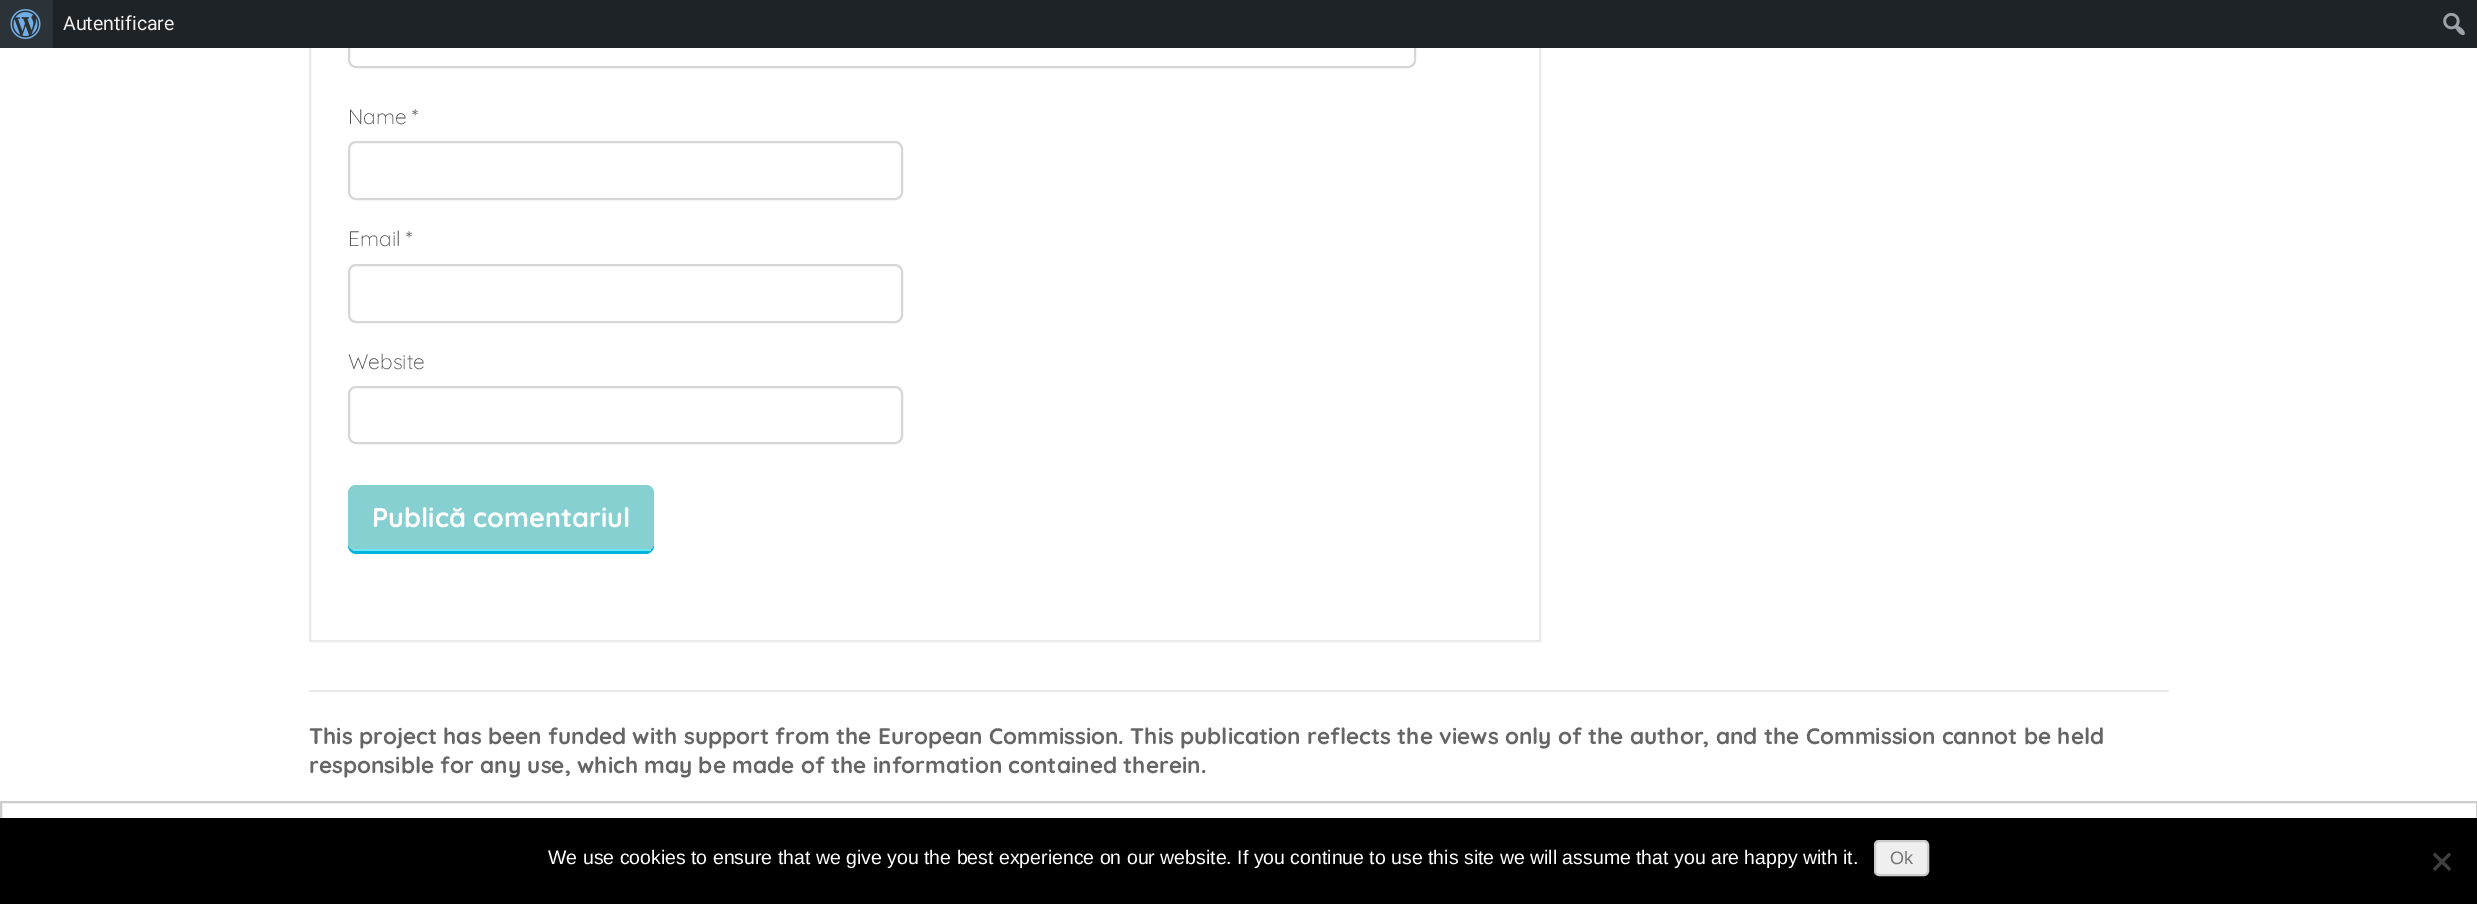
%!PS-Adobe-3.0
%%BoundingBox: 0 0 2477 904
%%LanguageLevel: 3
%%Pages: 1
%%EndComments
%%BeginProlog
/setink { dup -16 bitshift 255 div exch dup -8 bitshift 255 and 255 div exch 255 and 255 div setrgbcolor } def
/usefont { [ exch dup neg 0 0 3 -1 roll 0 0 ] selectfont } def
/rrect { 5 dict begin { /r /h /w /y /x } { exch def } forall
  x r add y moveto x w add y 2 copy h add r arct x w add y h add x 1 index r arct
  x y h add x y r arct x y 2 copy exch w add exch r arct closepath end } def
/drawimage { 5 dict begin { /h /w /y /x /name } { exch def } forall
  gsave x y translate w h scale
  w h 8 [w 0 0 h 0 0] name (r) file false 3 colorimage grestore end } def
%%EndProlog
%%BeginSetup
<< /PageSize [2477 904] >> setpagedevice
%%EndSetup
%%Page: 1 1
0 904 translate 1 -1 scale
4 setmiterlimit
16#FFFFFF setink
0 0 2477 904 rectfill
16#EAEAEA setink
2 setlinewidth
310 -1 1230 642 rectstroke
16#D7D7D7 setink
349 -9 1066 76 7 rrect stroke
16#1D2327 setink
53 0 2424 48 rectfill
16#2C3338 setink
0 0 53 48 rectfill
(img1.raw) 10 9 31 30 drawimage
/Roboto-Regular 19.5 usefont
16#F0F0F1 setink
63 30 moveto (Autentificare) show
(img2.raw) 2443 12 22 24 drawimage
/Quicksand-Light 21 usefont
16#505050 setink
348 124 moveto (Name *) show
16#D7D7D7 setink
349 142 553 57 7 rrect stroke
16#505050 setink
348 246 moveto (Email *) show
16#D7D7D7 setink
349 265 553 57 7 rrect stroke
16#505050 setink
348 369 moveto (Website) show
16#D7D7D7 setink
349 387 553 56 7 rrect stroke
16#00B3DB setink
348 543 moveto 348 546 lineto 348 550 352 554 356 554 curveto 646 554 lineto 650 554 654 550 654 546 curveto 654 543 lineto 654 547 651 550 646 550 curveto 356 550 lineto 351 550 348 547 348 543 curveto closepath fill
16#87D0D2 setink
348 485 306 66 8 rrect fill
16#6BE4FF setink
353 549 298 2 rectfill
/Quicksand-Bold 27 usefont
16#FFFFFF setink
372 527 moveto (Publică comentariul) show
16#EAEAEA setink
309 690 1860 2 rectfill
/Quicksand-Bold 22.5 usefont
16#656565 setink
309 744 moveto (This project has been funded with support from the European Commission. This publication reflects the views only of the author, and the Commission cannot be held) show
309 773 moveto (responsible for any use, which may be made of the information contained therein.) show
16#CDCDCD setink
1 802 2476 57 rectstroke
16#000000 setink
0 818 2477 86 rectfill
/LiberationSans-Regular 19.5 usefont
16#FFFFFF setink
548 864 moveto (We use cookies to ensure that we give you the best experience on our website. If you continue to use this site we will assume that you are happy with it.) show
16#EFEFEF setink
1875 841 53 34 4 rrect gsave fill grestore
16#CCCCCC setink
stroke
/LiberationSans-Regular 18 usefont
16#777777 setink
1890 864 moveto (Ok) show
16#404040 setink
2449 852.5 moveto 2451 855 lineto 2435 871 lineto 2433 868.5 lineto closepath fill
2433 855 moveto 2435 852.5 lineto 2451 868.5 lineto 2449 871 lineto closepath fill
showpage
%%EOF
